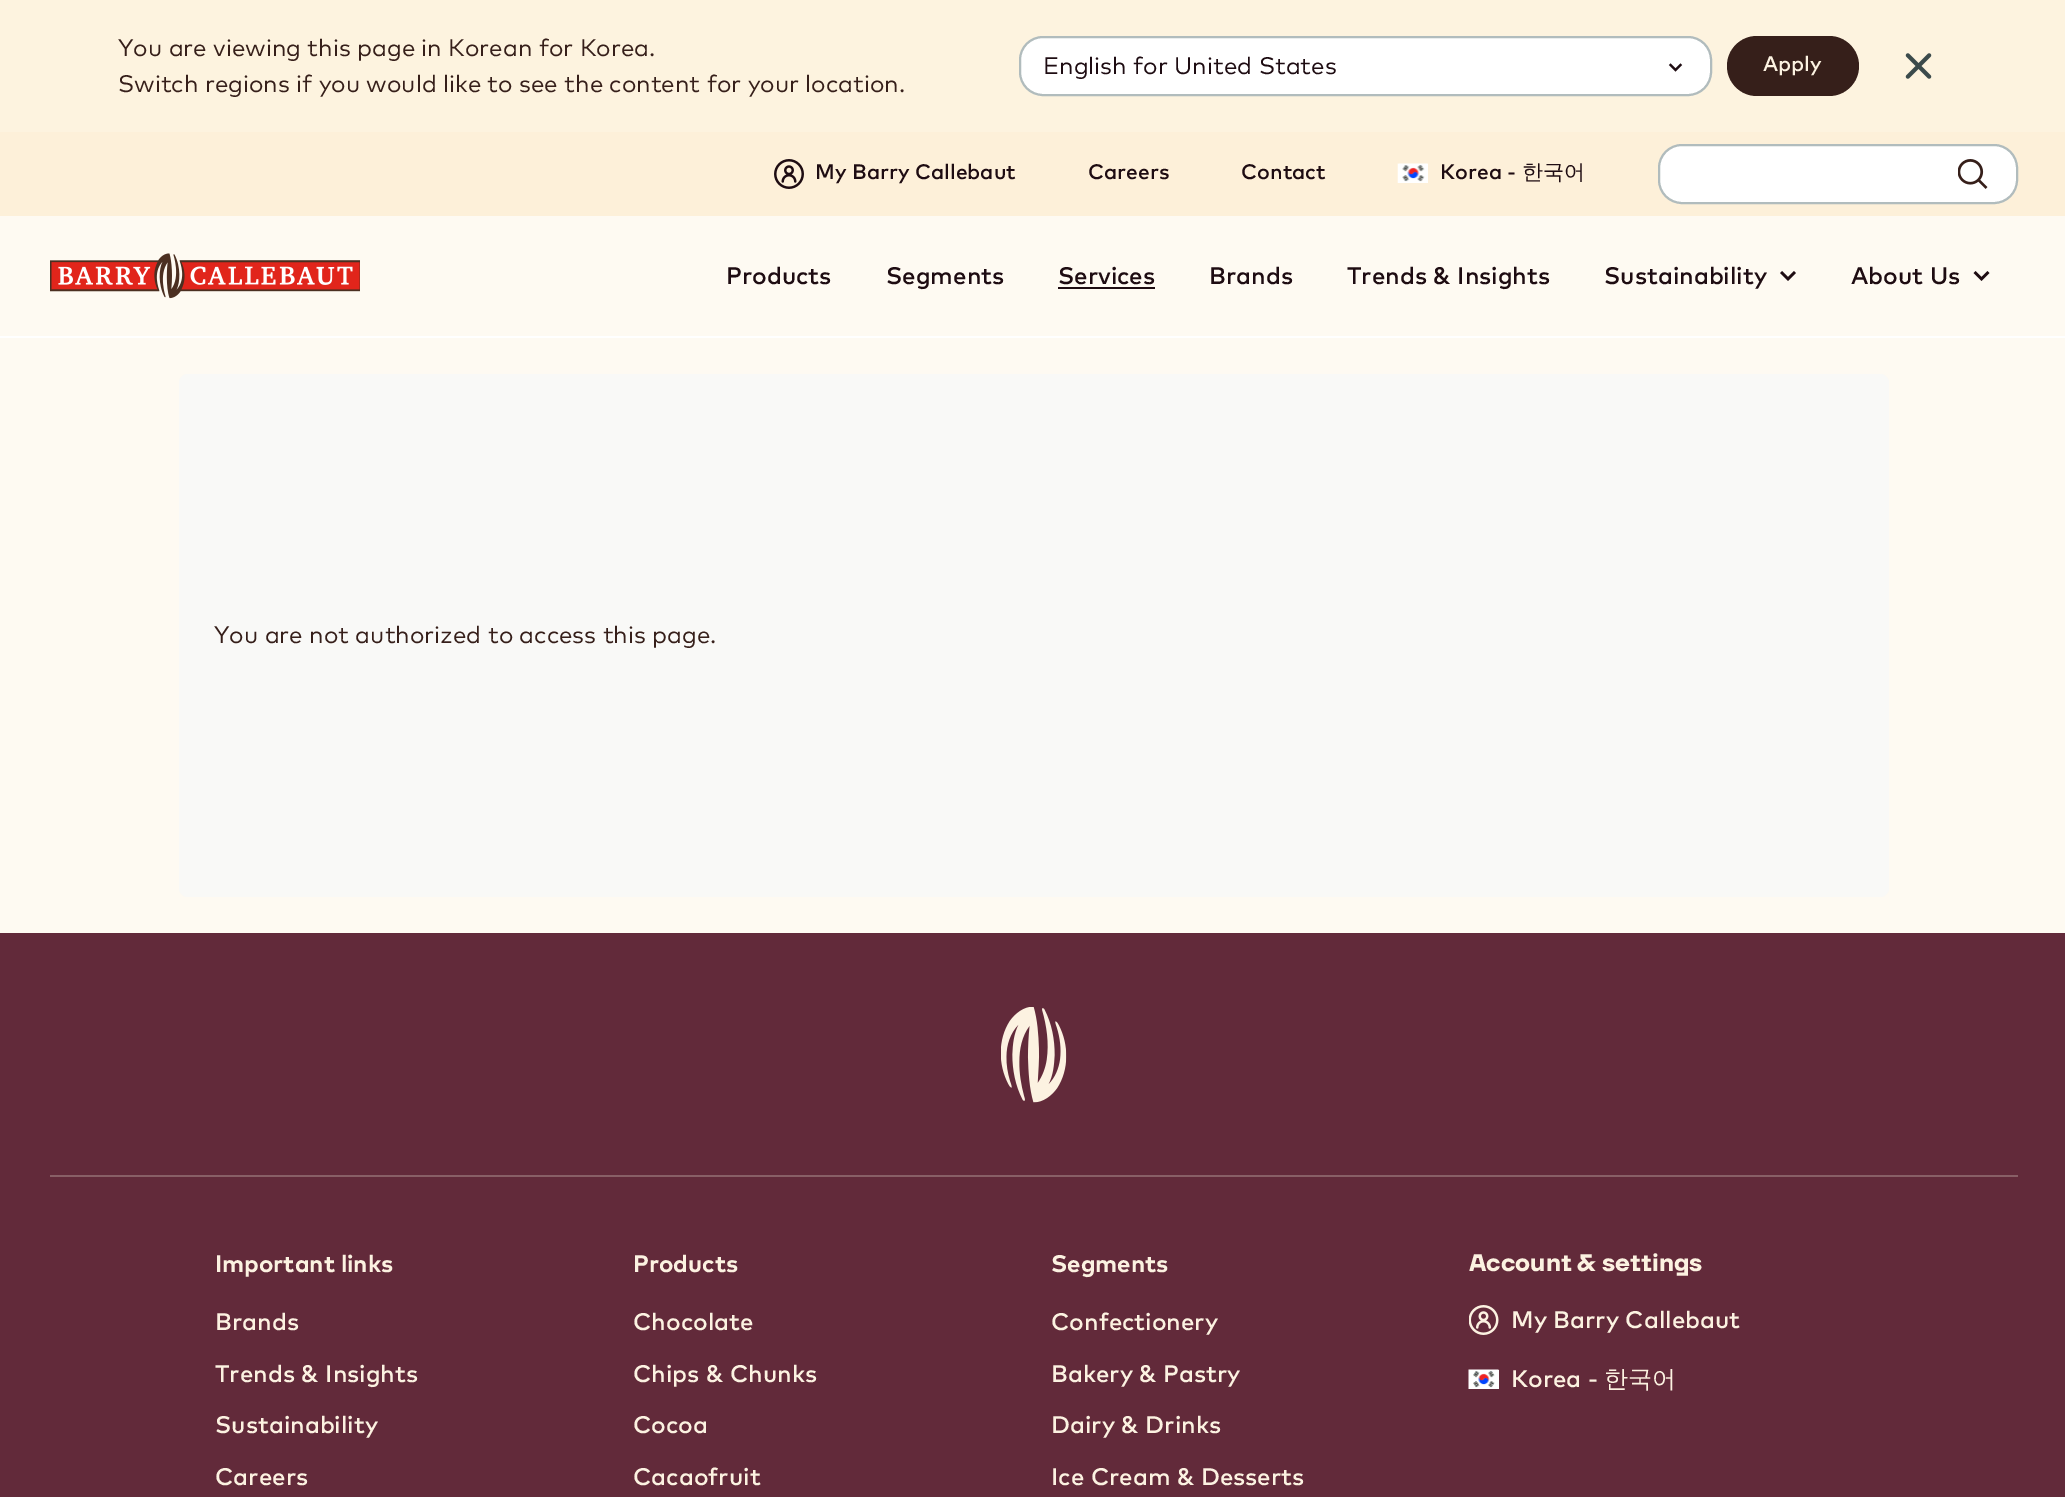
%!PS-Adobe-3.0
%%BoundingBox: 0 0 2065 1497
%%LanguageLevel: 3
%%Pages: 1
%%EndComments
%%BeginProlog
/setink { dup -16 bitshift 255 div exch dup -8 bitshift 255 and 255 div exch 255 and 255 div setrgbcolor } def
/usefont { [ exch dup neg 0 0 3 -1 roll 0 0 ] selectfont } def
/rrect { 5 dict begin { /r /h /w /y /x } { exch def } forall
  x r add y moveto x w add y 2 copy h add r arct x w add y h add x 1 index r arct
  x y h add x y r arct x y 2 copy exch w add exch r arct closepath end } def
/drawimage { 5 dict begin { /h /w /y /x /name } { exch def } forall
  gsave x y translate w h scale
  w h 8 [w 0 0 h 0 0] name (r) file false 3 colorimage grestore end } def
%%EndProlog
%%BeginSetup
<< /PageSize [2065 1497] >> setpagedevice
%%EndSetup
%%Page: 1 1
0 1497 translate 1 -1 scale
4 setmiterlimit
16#FDF3DF setink
0 0 2065 1497 rectfill
/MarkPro-Regular 24 usefont
16#361F1A setink
118 56 moveto (You are viewing this page in Korean for Korea.) show
118 92 moveto (Switch regions if you would like to see the content for your location.) show
16#FFFFFF setink
1020 37 691 58 23 rrect gsave fill grestore
16#B1BCBD setink
2 setlinewidth
stroke
16#1E0C12 setink
1043 74 moveto (English for United States) show
(img1.raw) 1668 63 15 9 drawimage
16#361F1A setink
1727 36 132 60 30 rrect fill
/MarkPro-Medium 21 usefont
16#FCF2E1 setink
1763 71 moveto (Apply) show
(img2.raw) 1905 53 27 26 drawimage
[
    [0 338 2065 595 16#FEFAF2]
    [0 336 2065 2 16#FFFFFF]
    [0 132 2065 84 16#FDF0D9]
] { aload pop setink rectfill } forall
(img3.raw) 774 159 30 30 drawimage
16#1E0C12 setink
[
    [(My Barry Callebaut) 815 179]
    [(Careers) 1088 179]
    [(Contact) 1241 179]
] { aload pop moveto show } forall
(img4.raw) 1397 163 31 20 drawimage
1440 179 moveto (Korea -) show
/WenQuanYiZenHei-Medium 21 usefont
1522 179 moveto (한국어) show
16#FFFFFF setink
1659 145 358 58 23 rrect gsave fill grestore
16#B1BCBD setink
stroke
(img5.raw) 1958 159 30 30 drawimage
16#FEFAF2 setink
0 216 2065 120 rectfill
(img6.raw) 50 253 310 46 drawimage
/MarkPro-Medium 24 usefont
16#1E0C12 setink
[
    [(Products) 726 284]
    [(Segments) 886 284]
    [(Services) 1058 284]
] { aload pop moveto show } forall
1058 287 97 2 rectfill
[
    [(Brands) 1209 284]
    [(Trends & Insights) 1347 284]
    [(Sustainability) 1604 284]
] { aload pop moveto show } forall
(img7.raw) 1780 271 16 10 drawimage
1851 284 moveto (About Us) show
(img8.raw) 1973 271 17 10 drawimage
16#F9F9F7 setink
179 374 1710 523 9 rrect fill
/MarkPro-Regular 24 usefont
16#361F1A setink
214 643 moveto (You are not authorized to access this page.) show
16#622A3A setink
0 933 2065 564 rectfill
(img9.raw) 1001 1007 66 96 drawimage
16#885F66 setink
50 1175 1968 2 rectfill
/MarkPro-Bold 24 usefont
16#FCF2E1 setink
215 1272 moveto (Important links) show
/MarkPro-Medium 24 usefont
[
    [(Brands) 215 1330]
    [(Trends & Insights) 215 1382]
    [(Sustainability) 215 1433]
    [(Careers) 215 1485]
] { aload pop moveto show } forall
/MarkPro-Bold 24 usefont
633 1272 moveto (Products) show
/MarkPro-Medium 24 usefont
[
    [(Chocolate) 633 1330]
    [(Chips & Chunks) 633 1382]
    [(Cocoa) 633 1433]
    [(Cacaofruit) 633 1485]
] { aload pop moveto show } forall
/MarkPro-Bold 24 usefont
1051 1272 moveto (Segments) show
/MarkPro-Medium 24 usefont
[
    [(Confectionery) 1051 1330]
    [(Bakery & Pastry) 1051 1382]
    [(Dairy & Drinks) 1051 1433]
    [(Ice Cream & Desserts) 1051 1485]
] { aload pop moveto show } forall
/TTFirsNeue-Bold 24 usefont
1469 1271 moveto (Account & settings) show
(img10.raw) 1469 1305 30 30 drawimage
/MarkPro-Medium 24 usefont
1511 1328 moveto (My Barry Callebaut) show
16#FFFFFF setink
1498 1370 1 19 rectfill
(img11.raw) 1468 1369 31 20 drawimage
16#FCF2E1 setink
1511 1387 moveto (Korea -) show
/WenQuanYiZenHei-Medium 24 usefont
1604 1387 moveto (한국어) show
showpage
%%EOF
